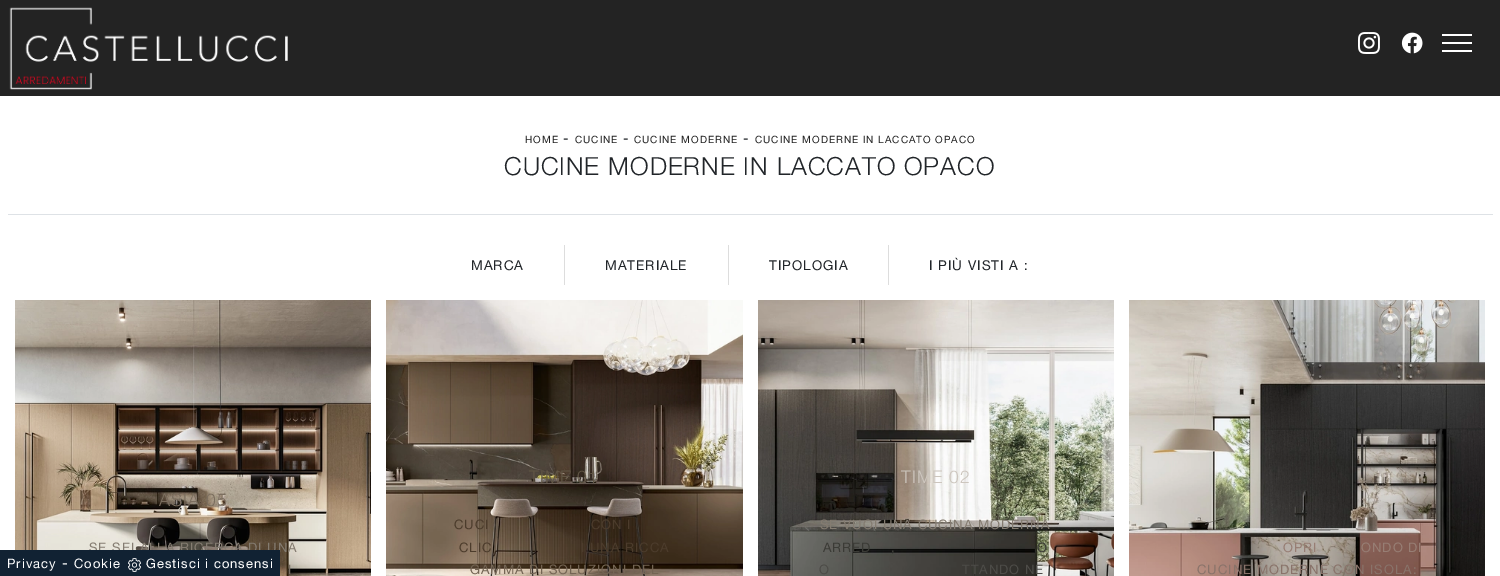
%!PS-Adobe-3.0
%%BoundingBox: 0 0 1500 576
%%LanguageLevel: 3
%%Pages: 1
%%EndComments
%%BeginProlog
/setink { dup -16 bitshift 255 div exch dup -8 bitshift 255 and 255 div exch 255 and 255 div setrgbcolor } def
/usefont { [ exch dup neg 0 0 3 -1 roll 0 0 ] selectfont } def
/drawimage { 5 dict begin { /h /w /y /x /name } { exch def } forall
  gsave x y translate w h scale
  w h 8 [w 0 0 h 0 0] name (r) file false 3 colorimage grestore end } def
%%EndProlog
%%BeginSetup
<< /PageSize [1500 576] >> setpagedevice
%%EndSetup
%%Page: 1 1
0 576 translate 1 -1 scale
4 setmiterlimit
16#FFFFFF setink
0 0 1500 576 rectfill
16#232323 setink
0 0 1500 96 rectfill
(img1.raw) 9 7 279 83 drawimage
(img2.raw) 1358 32 22 22 drawimage
(img3.raw) 1401 32 22 22 drawimage
[
    [1442 34 30 2 16#FFFFFF]
    [1442 42 30 2 16#FFFFFF]
    [1442 50 30 2 16#FFFFFF]
    [8 214 1485 1 16#DEE2E6]
] { aload pop setink rectfill } forall
/HelveticaNeue-Regular 10 usefont
16#222222 setink
525 143 moveto 1 0 (HOME) ashow
/HelveticaNeue-Regular 14 usefont
16#212529 setink
563 143 moveto 1 0 (-) ashow
/HelveticaNeue-Regular 10 usefont
16#222222 setink
575 143 moveto 1 0 (CUCINE) ashow
/HelveticaNeue-Regular 14 usefont
16#212529 setink
623 143 moveto 1 0 (-) ashow
/HelveticaNeue-Regular 10 usefont
16#222222 setink
634 143 moveto 1 0 (CUCINE MODERNE) ashow
/HelveticaNeue-Regular 14 usefont
16#212529 setink
743 143 moveto 1 0 (-) ashow
/HelveticaNeue-Regular 10 usefont
16#222222 setink
755 143 moveto 1 0 (CUCINE MODERNE IN LACCATO OPACO) ashow
/HelveticaNeue-Light 25 usefont
16#212529 setink
504 175 moveto 1 0 (CUCINE MODERNE IN LACCATO OPACO) ashow
16#DDDDDD setink
564 245 1 40 rectfill
/HelveticaNeue-Regular 13.5 usefont
16#212529 setink
471 270 moveto 1 0 (MARCA) ashow
16#DDDDDD setink
728 245 1 40 rectfill
16#212529 setink
605 270 moveto 1 0 (MATERIALE) ashow
16#DDDDDD setink
888 245 1 40 rectfill
16#212529 setink
769 270 moveto 1 0 (TIPOLOGIA) ashow
929 270 moveto 1 0 (I PIÙ VISTI A :) ashow
(img4.raw) 15 300 356 276 drawimage
/HelveticaNeue-Light 17.5 usefont
16#7B6E5F setink
159 506 moveto 1 0 (ASIA 05) ashow
/HelveticaNeue-Regular 13.1 usefont
16#847C71 setink
89 552 moveto 1 0 (SE SEI ALLA RICERCA DI UNA) ashow
16#756C61 setink
288 574 moveto 1 0 (I) ashow
(img5.raw) 386 300 357 276 drawimage
/HelveticaNeue-Light 17.5 usefont
16#615645 setink
529 483 moveto 1 0 (TIME 01) ashow
/HelveticaNeue-Regular 13.1 usefont
16#4C3C2C setink
454 529 moveto 1 0 (CUCI) ashow
591 529 moveto 1 0 (CON I) ashow
459 552 moveto 1 0 (CLIC) ashow
581 552 moveto 1 0 (I UNA RICCA) ashow
16#746554 setink
470 574 moveto 1 0 (GAMMA DI SOLUZIONI DEL) ashow
(img6.raw) 758 300 356 276 drawimage
/HelveticaNeue-Light 17.5 usefont
16#CDC6BE setink
901 483 moveto 1 0 (TIME 02) ashow
/HelveticaNeue-Regular 13.1 usefont
16#847C71 setink
820 529 moveto 1 0 (SE VUOI UNA CUCINA MODERNA) ashow
16#3B3B36 setink
823 552 moveto 1 0 (ARRED) ashow
891 552 moveto 1 0 (,) ashow
1037 552 moveto 1 0 (O) ashow
16#4D4C48 setink
819 574 moveto 1 0 (O) ashow
962 574 moveto 1 0 (TTANDO NE) ashow
(img7.raw) 1129 300 356 276 drawimage
16#977E74 setink
1283 552 moveto 1 0 (OPRI) ashow
1361 552 moveto 1 0 (ONDO DI) ashow
16#89736A setink
1197 574 moveto 1 0 (CUCINE MODERNE CON ISOLA:) ashow
16#112233 setink
0 550 280 26 rectfill
/HelveticaNeue-Regular 13 usefont
16#FFFFFF setink
7 568 moveto 1 0 (Privacy) ashow
/HelveticaNeue-Regular 15 usefont
62 568 moveto 1 0 (-) ashow
/HelveticaNeue-Regular 13 usefont
74 568 moveto 1 0 (Cookie) ashow
(img8.raw) 128 558 13 14 drawimage
146 568 moveto 1 0 (Gestisci i consensi) ashow
showpage
%%EOF
